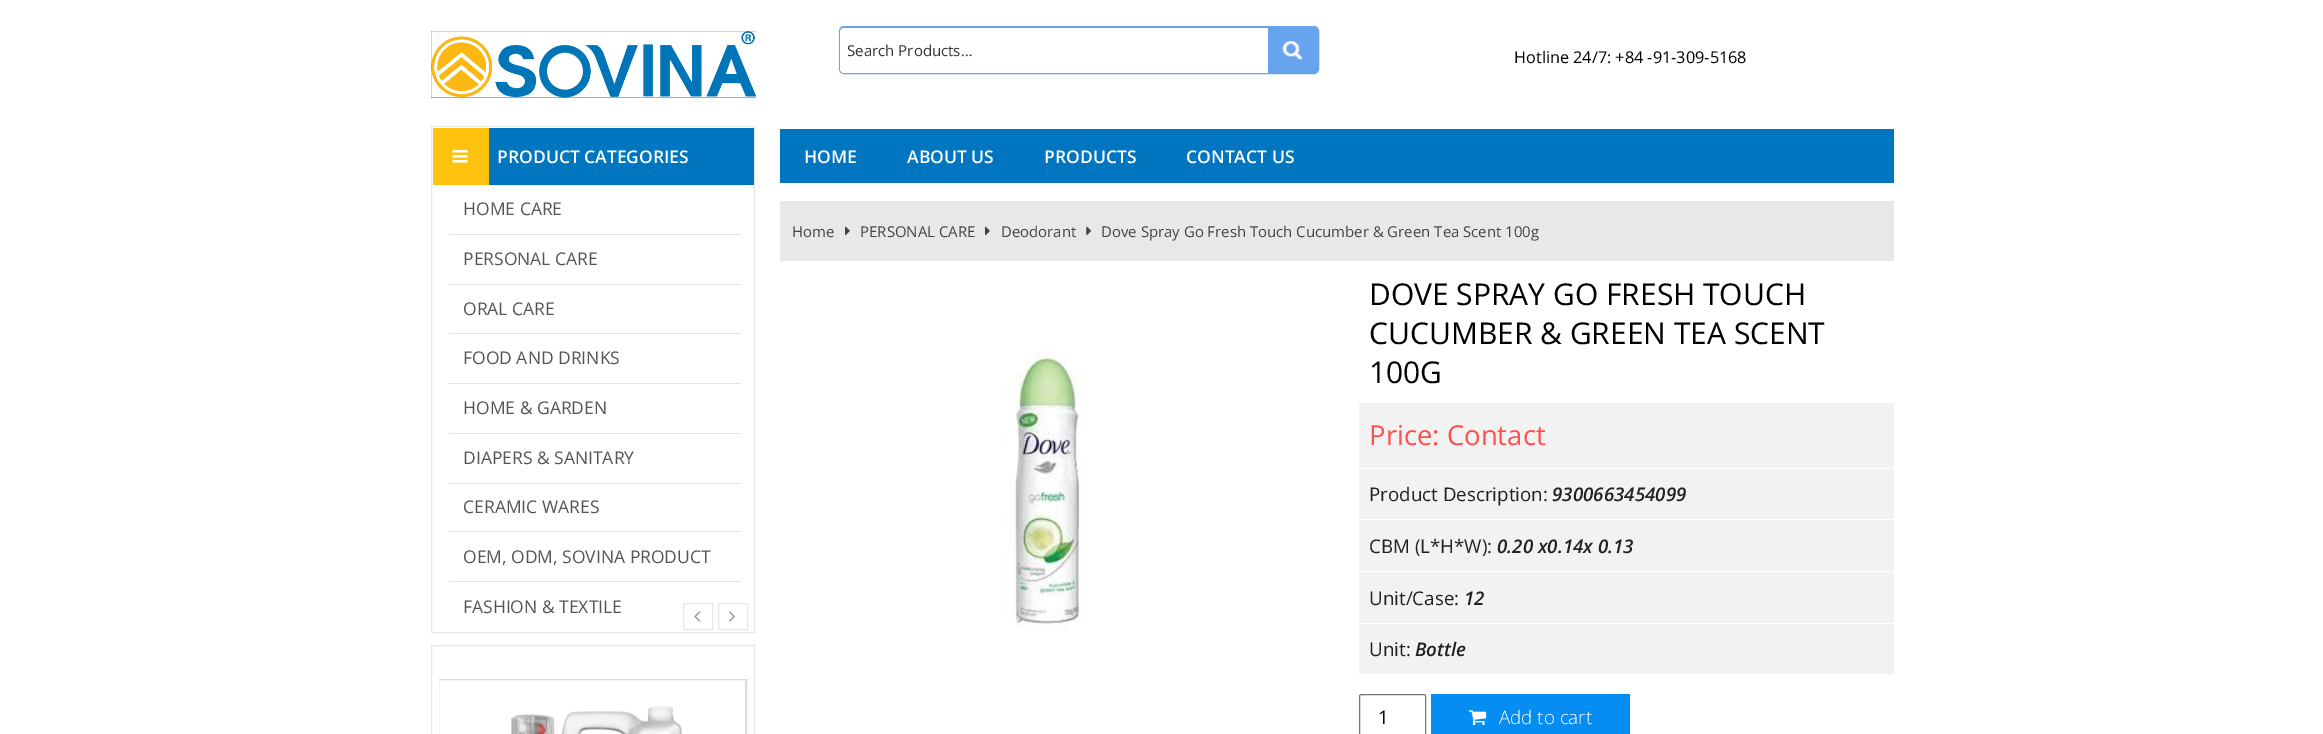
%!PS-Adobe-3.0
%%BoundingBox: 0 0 2323 734
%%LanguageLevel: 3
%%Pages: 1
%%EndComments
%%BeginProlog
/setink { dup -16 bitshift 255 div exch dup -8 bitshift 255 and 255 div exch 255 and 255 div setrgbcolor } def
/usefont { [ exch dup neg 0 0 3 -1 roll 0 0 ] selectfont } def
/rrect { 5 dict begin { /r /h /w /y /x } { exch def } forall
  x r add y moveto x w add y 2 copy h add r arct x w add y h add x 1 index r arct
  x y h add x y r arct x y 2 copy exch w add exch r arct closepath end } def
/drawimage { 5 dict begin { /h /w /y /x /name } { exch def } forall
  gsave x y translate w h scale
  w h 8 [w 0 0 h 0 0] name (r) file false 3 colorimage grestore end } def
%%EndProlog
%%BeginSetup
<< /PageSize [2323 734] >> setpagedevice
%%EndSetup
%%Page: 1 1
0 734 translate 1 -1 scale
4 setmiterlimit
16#FFFFFF setink
0 0 2323 734 rectfill
16#E7E7E7 setink
431.5 126.5 323 506 rectstroke
16#0076C0 setink
489 128 265 57 rectfill
16#FFC20D setink
433 128 56 57 rectfill
(img1.raw) 452 150 16 13 drawimage
/OpenSans-SemiBold 17.5 usefont
16#FFFFFF setink
497 163 moveto (PRODUCT CATEGORIES) show
/OpenSans-Regular 17.5 usefont
16#555555 setink
463 215 moveto (HOME CARE) show
16#E5E4E4 setink
449 234 292 1 rectfill
16#555555 setink
463 265 moveto (PERSONAL CARE) show
16#E5E4E4 setink
449 284 292 1 rectfill
16#555555 setink
463 315 moveto (ORAL CARE) show
16#E5E4E4 setink
449 333 292 1 rectfill
16#555555 setink
463 364 moveto (FOOD AND DRINKS) show
16#E5E4E4 setink
449 383 292 1 rectfill
16#555555 setink
463 414 moveto (HOME & GARDEN) show
16#E5E4E4 setink
449 433 292 1 rectfill
16#555555 setink
463 464 moveto (DIAPERS & SANITARY) show
16#E5E4E4 setink
449 483 292 1 rectfill
16#555555 setink
463 513 moveto (CERAMIC WARES) show
16#E5E4E4 setink
449 531 292 1 rectfill
16#555555 setink
463 563 moveto (OEM, ODM, SOVINA PRODUCT) show
16#E5E4E4 setink
449 581 292 1 rectfill
16#555555 setink
463 613 moveto (FASHION & TEXTILE) show
16#E7E7E7 setink
431.5 645.5 323 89 rectstroke
683.5 603.5 29 26 rectstroke
(img2.raw) 694 611 7 11 drawimage
718.5 603.5 29 26 rectstroke
(img3.raw) 729 611 6 11 drawimage
gsave
439 679 309 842 rectclip
16#DCDCDC setink
438.5 679.5 307 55 rectstroke
grestore
(img4.raw) 511 706 171 28 drawimage
gsave
439 679 309 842 rectclip
16#DCDCDC setink
746.5 679.5 308 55 rectstroke
grestore
16#68A3EE setink
839.5 26.5 479 47 4.5 rrect gsave fill grestore
stroke
16#FFFFFF setink
844 28 moveto 1268 28 lineto 1268 73 lineto 844 73 lineto 842 73 840 71 840 69 curveto 840 32 lineto 840 30 842 28 844 28 curveto closepath fill
gsave
848 40 397 21 rectclip
/OpenSans-Regular 15 usefont
16#333333 setink
847 56 moveto (Search Products…) show
grestore
(img5.raw) 1282 41 21 19 drawimage
16#E8E8E8 setink
780 201 1114 60 rectfill
/OpenSans-Regular 14.95 usefont
16#444444 setink
792 237 moveto (Home) show
(img6.raw) 845 226 5 10 drawimage
860 237 moveto (PERSONAL CARE) show
(img6.raw) 985 226 5 10 drawimage
1001 237 moveto (Deodorant) show
(img7.raw) 1086 226 5 10 drawimage
1101 237 moveto (Dove Spray Go Fresh Touch Cucumber & Green Tea Scent 100g) show
(img8.raw) 1006 351 80 280 drawimage
/OpenSans-Regular 30 usefont
16#000000 setink
[
    [(DOVE SPRAY GO FRESH TOUCH) 1369 305]
    [(CUCUMBER & GREEN TEA SCENT) 1369 344]
    [(100G) 1369 383]
] { aload pop moveto show } forall
16#F2F2F2 setink
1359 403 535 65 rectfill
/OpenSans-Regular 27.5 usefont
16#FF4F4F setink
1369 445 moveto (Price: Contact) show
16#F2F2F2 setink
1359 469 535 50 rectfill
/OpenSans-Regular 18.75 usefont
16#222222 setink
1369 501 moveto (Product Description:) show
/OpenSans-SemiBoldItalic 18.75 usefont
1552 501 moveto (9300663454099) show
16#F2F2F2 setink
1359 520 535 103 rectfill
16#FFFFFF setink
1359 571 535 1 rectfill
/OpenSans-Regular 18.75 usefont
16#222222 setink
1369 553 moveto (CBM \(L*H*W\):) show
/OpenSans-SemiBoldItalic 18.75 usefont
1497 553 moveto (0.20 x0.14x 0.13) show
/OpenSans-Regular 18.75 usefont
1369 605 moveto (Unit/Case:) show
/OpenSans-SemiBoldItalic 18.75 usefont
1464 605 moveto (12) show
16#F2F2F2 setink
1359 624 535 50 rectfill
/OpenSans-Regular 18.75 usefont
16#222222 setink
1369 656 moveto (Unit:) show
/OpenSans-SemiBoldItalic 18.75 usefont
1415 656 moveto (Bottle) show
16#767676 setink
1359.5 694.5 66 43 2 rrect stroke
/OpenSans-Regular 18.75 usefont
16#000000 setink
1378 724 moveto (1) show
16#058DF2 setink
1431 694 199 40 rectfill
(img9.raw) 1468 710 19 16 drawimage
/OpenSans-Light 18.75 usefont
16#FFFFFF setink
1499 724 moveto (Add to cart) show
16#0076C0 setink
431 31 325 67 rectfill
(img10.raw) 431 31 326 67 drawimage
/OpenSans-Regular 16.25 usefont
16#000000 setink
1514 63 moveto (Hotline 24/7: +84 -91-309-5168) show
16#0076C0 setink
780 129 1114 54 rectfill
/OpenSans-SemiBold 17.5 usefont
16#FFFFFF setink
[
    [(HOME) 804 163]
    [(ABOUT US) 907 163]
    [(PRODUCTS) 1044 163]
    [(CONTACT US) 1186 163]
] { aload pop moveto show } forall
showpage
%%EOF
